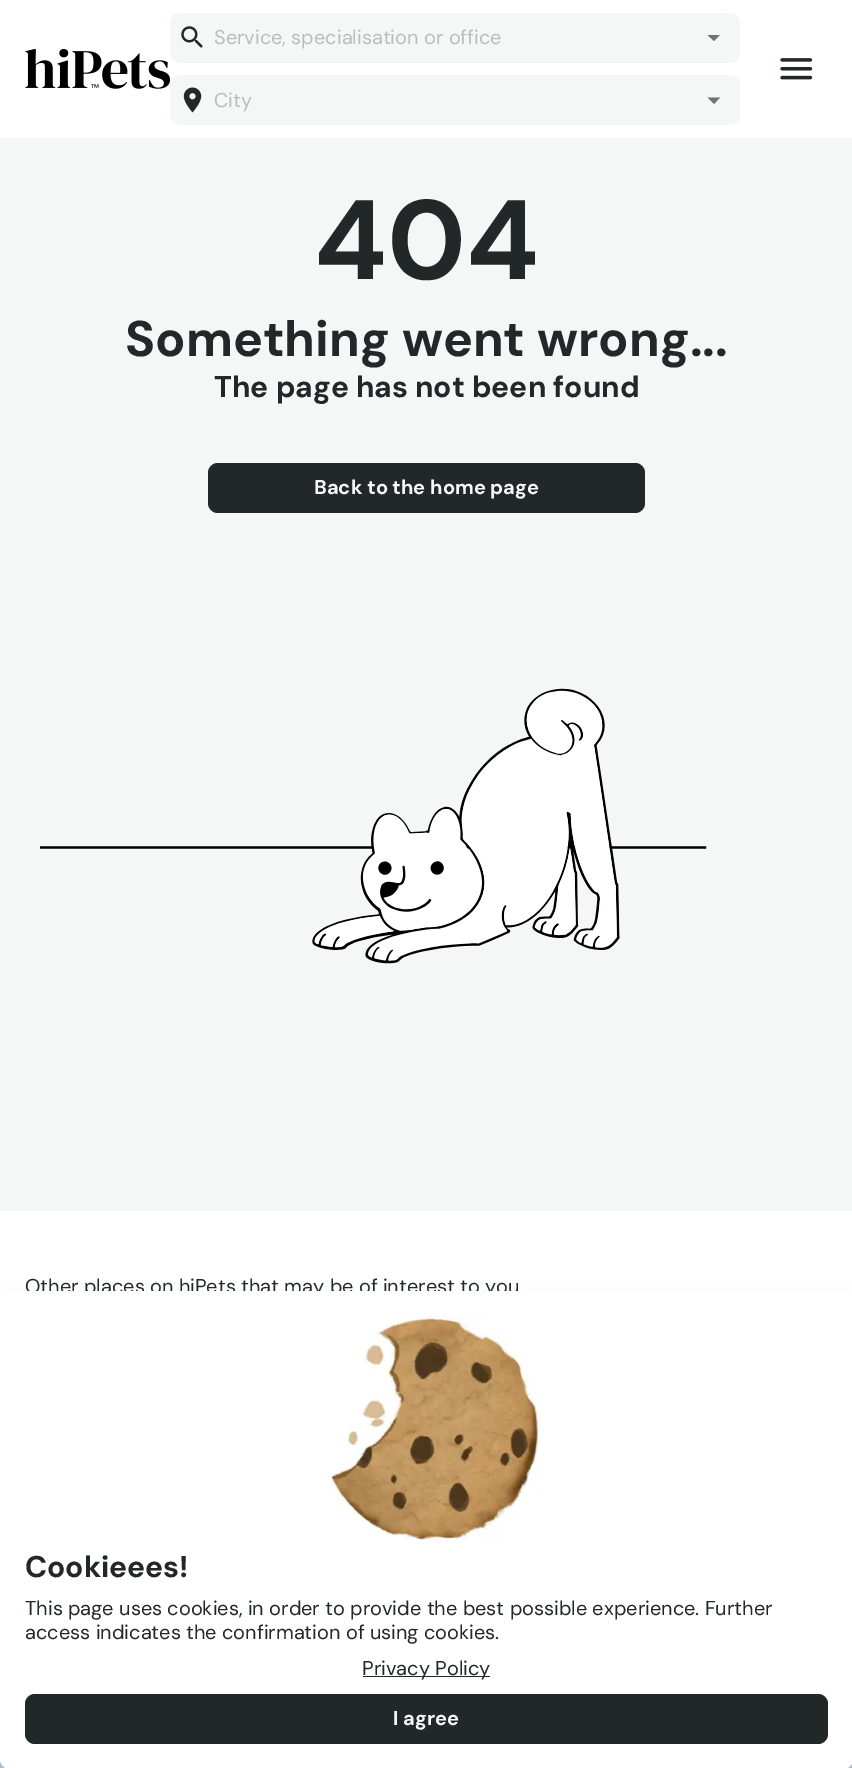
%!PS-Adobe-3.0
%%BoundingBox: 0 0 852 1768
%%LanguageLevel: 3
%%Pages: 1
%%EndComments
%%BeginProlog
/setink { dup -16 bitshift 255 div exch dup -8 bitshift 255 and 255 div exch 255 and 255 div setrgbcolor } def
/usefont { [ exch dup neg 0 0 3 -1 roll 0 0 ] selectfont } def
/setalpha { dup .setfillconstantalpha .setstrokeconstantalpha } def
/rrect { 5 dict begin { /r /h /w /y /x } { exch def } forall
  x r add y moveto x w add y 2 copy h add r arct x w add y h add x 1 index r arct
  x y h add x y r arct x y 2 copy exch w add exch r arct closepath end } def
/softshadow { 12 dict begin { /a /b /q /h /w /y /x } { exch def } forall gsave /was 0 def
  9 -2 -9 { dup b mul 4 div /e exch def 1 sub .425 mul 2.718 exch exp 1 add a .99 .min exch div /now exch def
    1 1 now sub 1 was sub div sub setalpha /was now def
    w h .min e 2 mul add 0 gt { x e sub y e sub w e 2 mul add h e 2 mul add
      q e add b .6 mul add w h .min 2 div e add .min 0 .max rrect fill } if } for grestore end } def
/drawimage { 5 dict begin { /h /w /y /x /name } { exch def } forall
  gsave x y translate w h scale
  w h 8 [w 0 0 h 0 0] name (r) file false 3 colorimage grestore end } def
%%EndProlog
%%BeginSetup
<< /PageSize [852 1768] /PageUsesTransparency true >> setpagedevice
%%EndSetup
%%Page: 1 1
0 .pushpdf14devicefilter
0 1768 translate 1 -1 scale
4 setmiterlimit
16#FFFFFF setink
0 0 852 1768 rectfill
(img1.raw) 25 49 145 40 drawimage
16#F5F7F7 setink
170 13 570 50 10 rrect fill
(img2.raw) 181 26 22 22 drawimage
/DMSans-Regular 20 usefont
16#B5BFBE setink
214 44 moveto (Service, specialisation or office) show
16#717272 setink
707.5 35 moveto 714 41 lineto 720 35 lineto closepath fill
16#F5F7F7 setink
170 75 570 50 10 rrect fill
(img3.raw) 183 87 19 26 drawimage
16#B5BFBE setink
214 107 moveto (City) show
16#717272 setink
707.5 97.5 moveto 714 104 lineto 720 97.5 lineto closepath fill
(img4.raw) 780 58 33 22 drawimage
16#F5F7F7 setink
0 138 852 1073 rectfill
/DMSans-Bold 112.5 usefont
16#222827 setink
314 279 moveto (404) show
/DMSans-Bold 50 usefont
125 356 moveto (Something went wrong...) show
/DMSans-Bold 30 usefont
214 397 moveto (The page has not been found) show
208 463 437 50 10 rrect fill
/DMSans-Bold 20 usefont
16#F5F7F7 setink
314 494 moveto (Back to the home page) show
(img5.raw) 40 688 667 276 drawimage
/DMSans-Regular 20 usefont
16#222827 setink
25 1293 moveto (Other places on hiPets that may be of interest to you) show
16#AFC1C0 setink
0 1759 852 9 rectfill
16#9AAACF setink
0 1301 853 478 10 9.5 0.2 softshadow
16#FFFFFF setink
0 1291 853 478 10 rrect fill
(img6.raw) 331 1316 213 227 drawimage
/DMSans-Bold 30 usefont
16#222827 setink
25 1577 moveto (Cookieees!) show
/DMSans-Regular 20 usefont
25 1615 moveto (This page uses cookies, in order to provide the best possible experience. Further) show
25 1639 moveto (access indicates the confirmation of using cookies.) show
363 1676 127 1 rectfill
362 1675 moveto (Privacy Policy) show
25 1694 803 50 10 rrect fill
/DMSans-Bold 20 usefont
16#F5F7F7 setink
393 1725 moveto (I agree) show
.poppdf14devicefilter showpage
%%EOF
